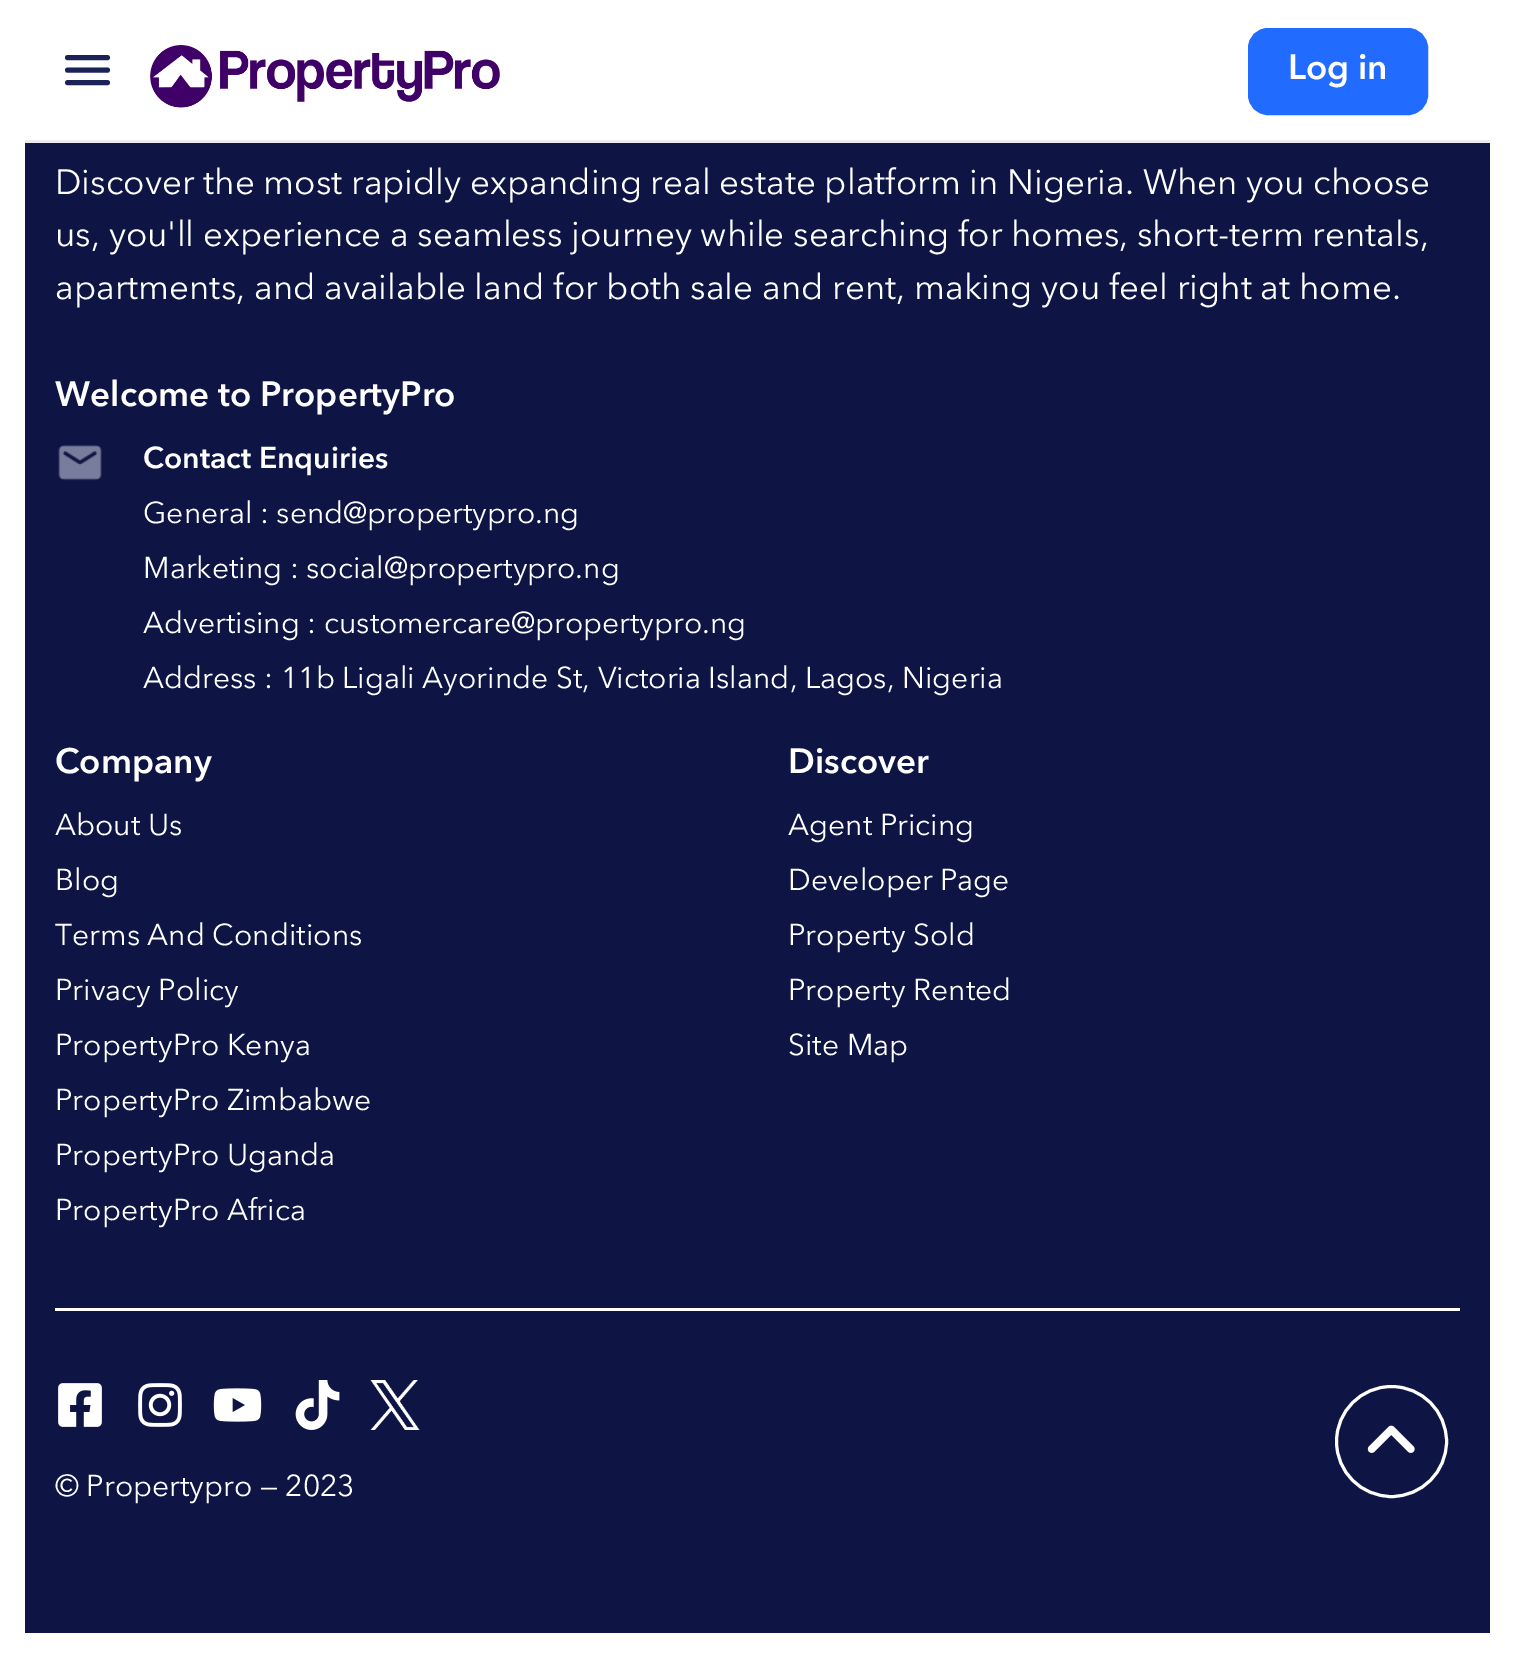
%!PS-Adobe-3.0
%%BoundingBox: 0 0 1515 1656
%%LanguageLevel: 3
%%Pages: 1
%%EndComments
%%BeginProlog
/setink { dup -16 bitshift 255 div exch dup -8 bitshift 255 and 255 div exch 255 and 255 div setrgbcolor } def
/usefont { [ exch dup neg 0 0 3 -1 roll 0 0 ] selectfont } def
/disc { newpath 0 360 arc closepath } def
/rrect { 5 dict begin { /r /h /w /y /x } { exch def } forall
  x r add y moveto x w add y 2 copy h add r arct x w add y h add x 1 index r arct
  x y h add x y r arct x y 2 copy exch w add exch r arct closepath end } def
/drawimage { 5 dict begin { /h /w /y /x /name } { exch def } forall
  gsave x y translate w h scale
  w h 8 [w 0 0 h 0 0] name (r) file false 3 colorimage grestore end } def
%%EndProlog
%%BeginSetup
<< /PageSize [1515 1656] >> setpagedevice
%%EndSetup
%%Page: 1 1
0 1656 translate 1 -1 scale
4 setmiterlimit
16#FFFFFF setink
0 0 1515 1656 rectfill
16#EAEBF0 setink
25 140 1465 3 rectfill
16#1A2258 setink
5 setlinewidth
1 setlinecap
67.5 82.5 moveto 107.5 82.5 lineto 67.5 57.5 moveto 107.5 57.5 lineto 67.5 70 moveto 107.5 70 lineto stroke
(img1.raw) 150 45 350 63 drawimage
16#216BFF setink
1249.5 29.5 177 84 18.5 rrect gsave fill grestore
3 setlinewidth
0 setlinecap
stroke
/AvenirNext-SemiBold 35 usefont
16#FFFFFF setink
1288 79 moveto (Log in) show
16#0E1545 setink
25 143 1465 1490 rectfill
16#FFFFFF setink
55 1308 1405 3 rectfill
/AvenirNext-Regular 35 usefont
[
    [(Discover the most rapidly expanding real estate platform in Nigeria. When you choose) 55 194]
    [(us, you'll experience a seamless journey while searching for homes, short-term rentals,) 55 246]
    [(apartments, and available land for both sale and rent, making you feel right at home.) 55 299]
] { aload pop moveto show } forall
/AvenirNext-SemiBold 35 usefont
55 406 moveto (Welcome to PropertyPro) show
(img2.raw) 58 445 44 36 drawimage
/AvenirNext-SemiBold 30 usefont
143 468 moveto (Contact Enquiries) show
/AvenirNext-Regular 30 usefont
[
    [(General : send@propertypro.ng) 143 523]
    [(Marketing : social@propertypro.ng) 143 578]
    [(Advertising : customercare@propertypro.ng) 143 633]
    [(Address : 11b Ligali Ayorinde St, Victoria Island, Lagos, Nigeria) 143 688]
] { aload pop moveto show } forall
/AvenirNext-SemiBold 35 usefont
55 773 moveto (Company) show
/AvenirNext-Regular 30 usefont
[
    [(About Us) 55 835]
    [(Blog) 55 890]
    [(Terms And Conditions) 55 945]
    [(Privacy Policy) 55 1000]
    [(PropertyPro Kenya) 55 1055]
    [(PropertyPro Zimbabwe) 55 1110]
    [(PropertyPro Uganda) 55 1165]
    [(PropertyPro Africa) 55 1220]
] { aload pop moveto show } forall
/AvenirNext-SemiBold 35 usefont
788 773 moveto (Discover) show
/AvenirNext-Regular 30 usefont
[
    [(Agent Pricing) 788 835]
    [(Developer Page) 788 890]
    [(Property Sold) 788 945]
    [(Property Rented) 788 1000]
    [(Site Map) 788 1055]
] { aload pop moveto show } forall
(img3.raw) 58 1383 44 44 drawimage
(img4.raw) 138 1383 44 44 drawimage
(img5.raw) 213 1388 49 34 drawimage
(img6.raw) 295 1380 45 50 drawimage
(img7.raw) 370 1380 50 50 drawimage
55 1496 moveto (© Propertypro — 2023) show
1391.5 1441.5 55 disc stroke
(img8.raw) 1367 1425 48 28 drawimage
showpage
%%EOF
